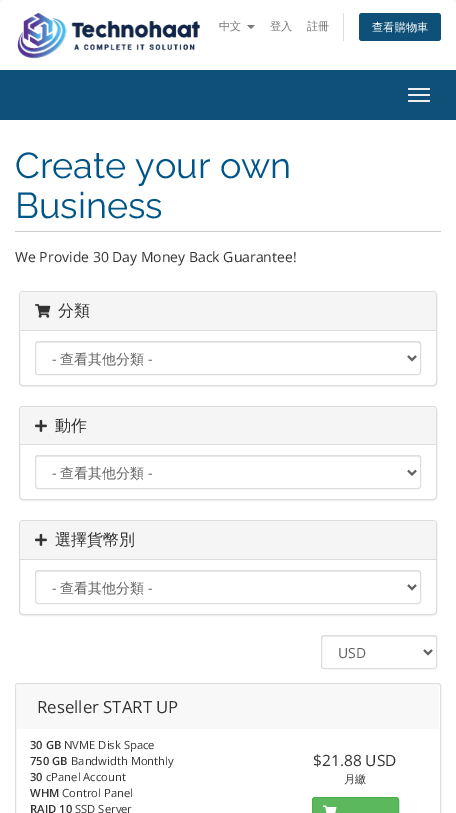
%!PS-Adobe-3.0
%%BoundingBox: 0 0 456 813
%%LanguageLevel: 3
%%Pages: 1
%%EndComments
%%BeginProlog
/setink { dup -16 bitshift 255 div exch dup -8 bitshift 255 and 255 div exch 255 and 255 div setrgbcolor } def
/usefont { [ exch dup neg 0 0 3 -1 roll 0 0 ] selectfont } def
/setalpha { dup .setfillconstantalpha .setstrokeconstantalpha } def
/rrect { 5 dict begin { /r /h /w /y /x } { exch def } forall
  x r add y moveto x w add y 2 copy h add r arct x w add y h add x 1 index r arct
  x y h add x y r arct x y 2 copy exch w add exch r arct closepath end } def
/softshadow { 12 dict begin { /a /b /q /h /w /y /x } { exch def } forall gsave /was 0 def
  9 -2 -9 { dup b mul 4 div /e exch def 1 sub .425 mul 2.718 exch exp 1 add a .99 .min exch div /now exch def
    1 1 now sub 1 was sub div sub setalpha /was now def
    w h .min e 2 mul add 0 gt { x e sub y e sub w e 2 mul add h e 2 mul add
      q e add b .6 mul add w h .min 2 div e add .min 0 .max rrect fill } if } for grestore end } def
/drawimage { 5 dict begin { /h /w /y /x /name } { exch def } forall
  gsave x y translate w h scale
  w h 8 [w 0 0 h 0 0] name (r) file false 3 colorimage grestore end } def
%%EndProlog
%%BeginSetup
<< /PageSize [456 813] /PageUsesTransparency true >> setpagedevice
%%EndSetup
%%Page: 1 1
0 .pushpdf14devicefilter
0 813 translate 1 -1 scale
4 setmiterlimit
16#F8F8F8 setink
0 0 456 813 rectfill
16#FFFFFF setink
5 0 moveto 451 0 lineto 454 0 456 2 456 5 curveto 456 70 lineto 0 70 lineto 0 5 lineto 0 2 2 0 5 0 curveto closepath fill
(img1.raw) 17 13 183 46 drawimage
/WenQuanYiZenHei-Medium 11.25 usefont
16#777777 setink
219 30 moveto (中文) show
247 25 moveto 255 25 lineto 251 29 lineto closepath fill
270 30 moveto (登入) show
307 30 moveto (註冊) show
16#DDDDDD setink
343 13 1 28 rectfill
16#0E5077 setink
359 13 82 28 3 rrect fill
16#FFFFFF setink
372 31 moveto (查看購物車) show
16#0E5077 setink
0 70 456 50 rectfill
16#EEEEEE setink
408 88 22 2 1 rrect fill
408 94 22 2 1 rrect fill
408 100 22 2 1 rrect fill
16#FFFFFF setink
0 120 456 693 rectfill
16#CCCCCC setink
15 231 426 1 rectfill
/Raleway-Regular 36 usefont
16#005588 setink
15 178 moveto (Create your own) show
15 218 moveto (Business) show
/OpenSans-Regular 14 usefont
16#333333 setink
15 262 moveto (We Provide 30 Day Money Back Guarantee!) show
16#000000 setink
19 292 418 95 4 0.5 0.05 softshadow
16#FFFFFF setink
19.5 291.5 417 94 3.5 rrect gsave fill grestore
16#DDDDDD setink
stroke
16#F5F5F5 setink
23 292 moveto 433 292 lineto 434.5 292 436 293.5 436 295 curveto 436 331 lineto 20 331 lineto 20 295 lineto 20 293.5 21.5 292 23 292 curveto closepath fill
16#DDDDDD setink
20 330 416 1 rectfill
(img2.raw) 35 304 16 14 drawimage
/WenQuanYiZenHei-Medium 16 usefont
16#333333 setink
58 316 moveto (分類) show
16#ECECEC setink
38 343 moveto 418 343 lineto 419 343 420 344 420 345 curveto 420 344 420 342 418 342 curveto 38 342 lineto 36 343 lineto 36 345 lineto 36 344 37 343 38 343 curveto closepath fill
16#DDDDDD setink
35.5 341.5 385 33 2.5 rrect stroke
16#626262 setink
2 setlinewidth
408 356 moveto 412 360 lineto 416 356 lineto stroke
/OpenSans-Regular 14 usefont
52 364 moveto (-) show
/WenQuanYiZenHei-Medium 14 usefont
60 364 moveto (查看其他分類) show
/OpenSans-Regular 14 usefont
148 364 moveto (-) show
16#000000 setink
19 407 418 94 4 0.5 0.05 softshadow
16#FFFFFF setink
19.5 406.5 417 93 3.5 rrect gsave fill grestore
16#DDDDDD setink
1 setlinewidth
stroke
16#F5F5F5 setink
23 407 moveto 433 407 lineto 434.5 407 436 408.5 436 410 curveto 436 445 lineto 20 445 lineto 20 410 lineto 20 408.5 21.5 407 23 407 curveto closepath fill
16#DDDDDD setink
20 444 416 1 rectfill
(img3.raw) 35 419 12 13 drawimage
/WenQuanYiZenHei-Medium 16 usefont
16#333333 setink
55 431 moveto (動作) show
16#ECECEC setink
38 457 moveto 418 457 lineto 419 457 420 458 420 459 curveto 420 458 420 456 418 456 curveto 38 456 lineto 36 457 lineto 36 459 lineto 36 458 37 457 38 457 curveto closepath fill
16#DDDDDD setink
35.5 455.5 385 33 2.5 rrect stroke
16#626262 setink
2 setlinewidth
408 470.5 moveto 412 474.5 lineto 416 470.5 lineto stroke
/OpenSans-Regular 14 usefont
52 478 moveto (-) show
/WenQuanYiZenHei-Medium 14 usefont
60 478 moveto (查看其他分類) show
/OpenSans-Regular 14 usefont
148 478 moveto (-) show
16#000000 setink
19 521 418 95 4 0.5 0.05 softshadow
16#FFFFFF setink
19.5 520.5 417 94 3.5 rrect gsave fill grestore
16#DDDDDD setink
1 setlinewidth
stroke
16#F5F5F5 setink
23 521 moveto 433 521 lineto 434.5 521 436 522.5 436 524 curveto 436 560 lineto 20 560 lineto 20 524 lineto 20 522.5 21.5 521 23 521 curveto closepath fill
16#DDDDDD setink
20 559 416 1 rectfill
(img3.raw) 35 533 12 13 drawimage
/WenQuanYiZenHei-Medium 16 usefont
16#333333 setink
55 545 moveto (選擇貨幣別) show
16#ECECEC setink
38 572 moveto 418 572 lineto 419 572 420 573 420 574 curveto 420 573 420 571 418 571 curveto 38 571 lineto 36 572 lineto 36 574 lineto 36 573 37 572 38 572 curveto closepath fill
16#DDDDDD setink
35.5 570.5 385 33 2.5 rrect stroke
16#626262 setink
2 setlinewidth
408 585 moveto 412 589 lineto 416 585 lineto stroke
/OpenSans-Regular 14 usefont
52 593 moveto (-) show
/WenQuanYiZenHei-Medium 14 usefont
60 593 moveto (查看其他分類) show
/OpenSans-Regular 14 usefont
148 593 moveto (-) show
16#ECECEC setink
324 637 moveto 434 637 lineto 435 637 436 638 436 639 curveto 436 638 436 636 434 636 curveto 324 636 lineto 322 636 322 638 322 639 curveto 322 638 323 637 324 637 curveto closepath fill
16#DDDDDD setink
1 setlinewidth
321.5 635.5 115 33 2.5 rrect stroke
16#626262 setink
2 setlinewidth
424 650 moveto 428 654 lineto 432 650 lineto stroke
338 658 moveto (USD) show
16#DDDDDD setink
1 setlinewidth
15.5 683.5 425 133 2.5 rrect stroke
16#F8F8F8 setink
20 685 moveto 436 685 lineto 437.5 685 439 686.5 439 688 curveto 439 729 lineto 17 729 lineto 17 688 lineto 17 686.5 18.5 685 20 685 curveto closepath fill
/OpenSans-Regular 16.75 usefont
16#333333 setink
37 713 moveto (Reseller START UP) show
/OpenSans-SemiBold 11.25 usefont
30 749 moveto (30 GB) show
/OpenSans-Regular 11.25 usefont
64 749 moveto (NVME Disk Space) show
/OpenSans-SemiBold 11.25 usefont
30 765 moveto (750 GB) show
/OpenSans-Regular 11.25 usefont
71 765 moveto (Bandwidth Monthly) show
/OpenSans-SemiBold 11.25 usefont
30 781 moveto (30) show
/OpenSans-Regular 11.25 usefont
46 781 moveto (cPanel Account) show
/OpenSans-SemiBold 11.25 usefont
30 797 moveto (WHM) show
/OpenSans-Regular 11.25 usefont
62 797 moveto (Control Panel) show
/OpenSans-SemiBold 11.25 usefont
30 813 moveto (RAID 10) show
/OpenSans-Regular 11.25 usefont
75 813 moveto (SSD Server) show
/OpenSans-Regular 15.5 usefont
313 766 moveto ($21.88 USD) show
/WenQuanYiZenHei-Medium 11.25 usefont
344 783 moveto (月繳) show
16#5CB85C setink
312.5 797.5 86 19 2.5 rrect gsave fill grestore
16#4CAE4C setink
stroke
(img4.raw) 323 805 14 8 drawimage
.poppdf14devicefilter showpage
%%EOF
